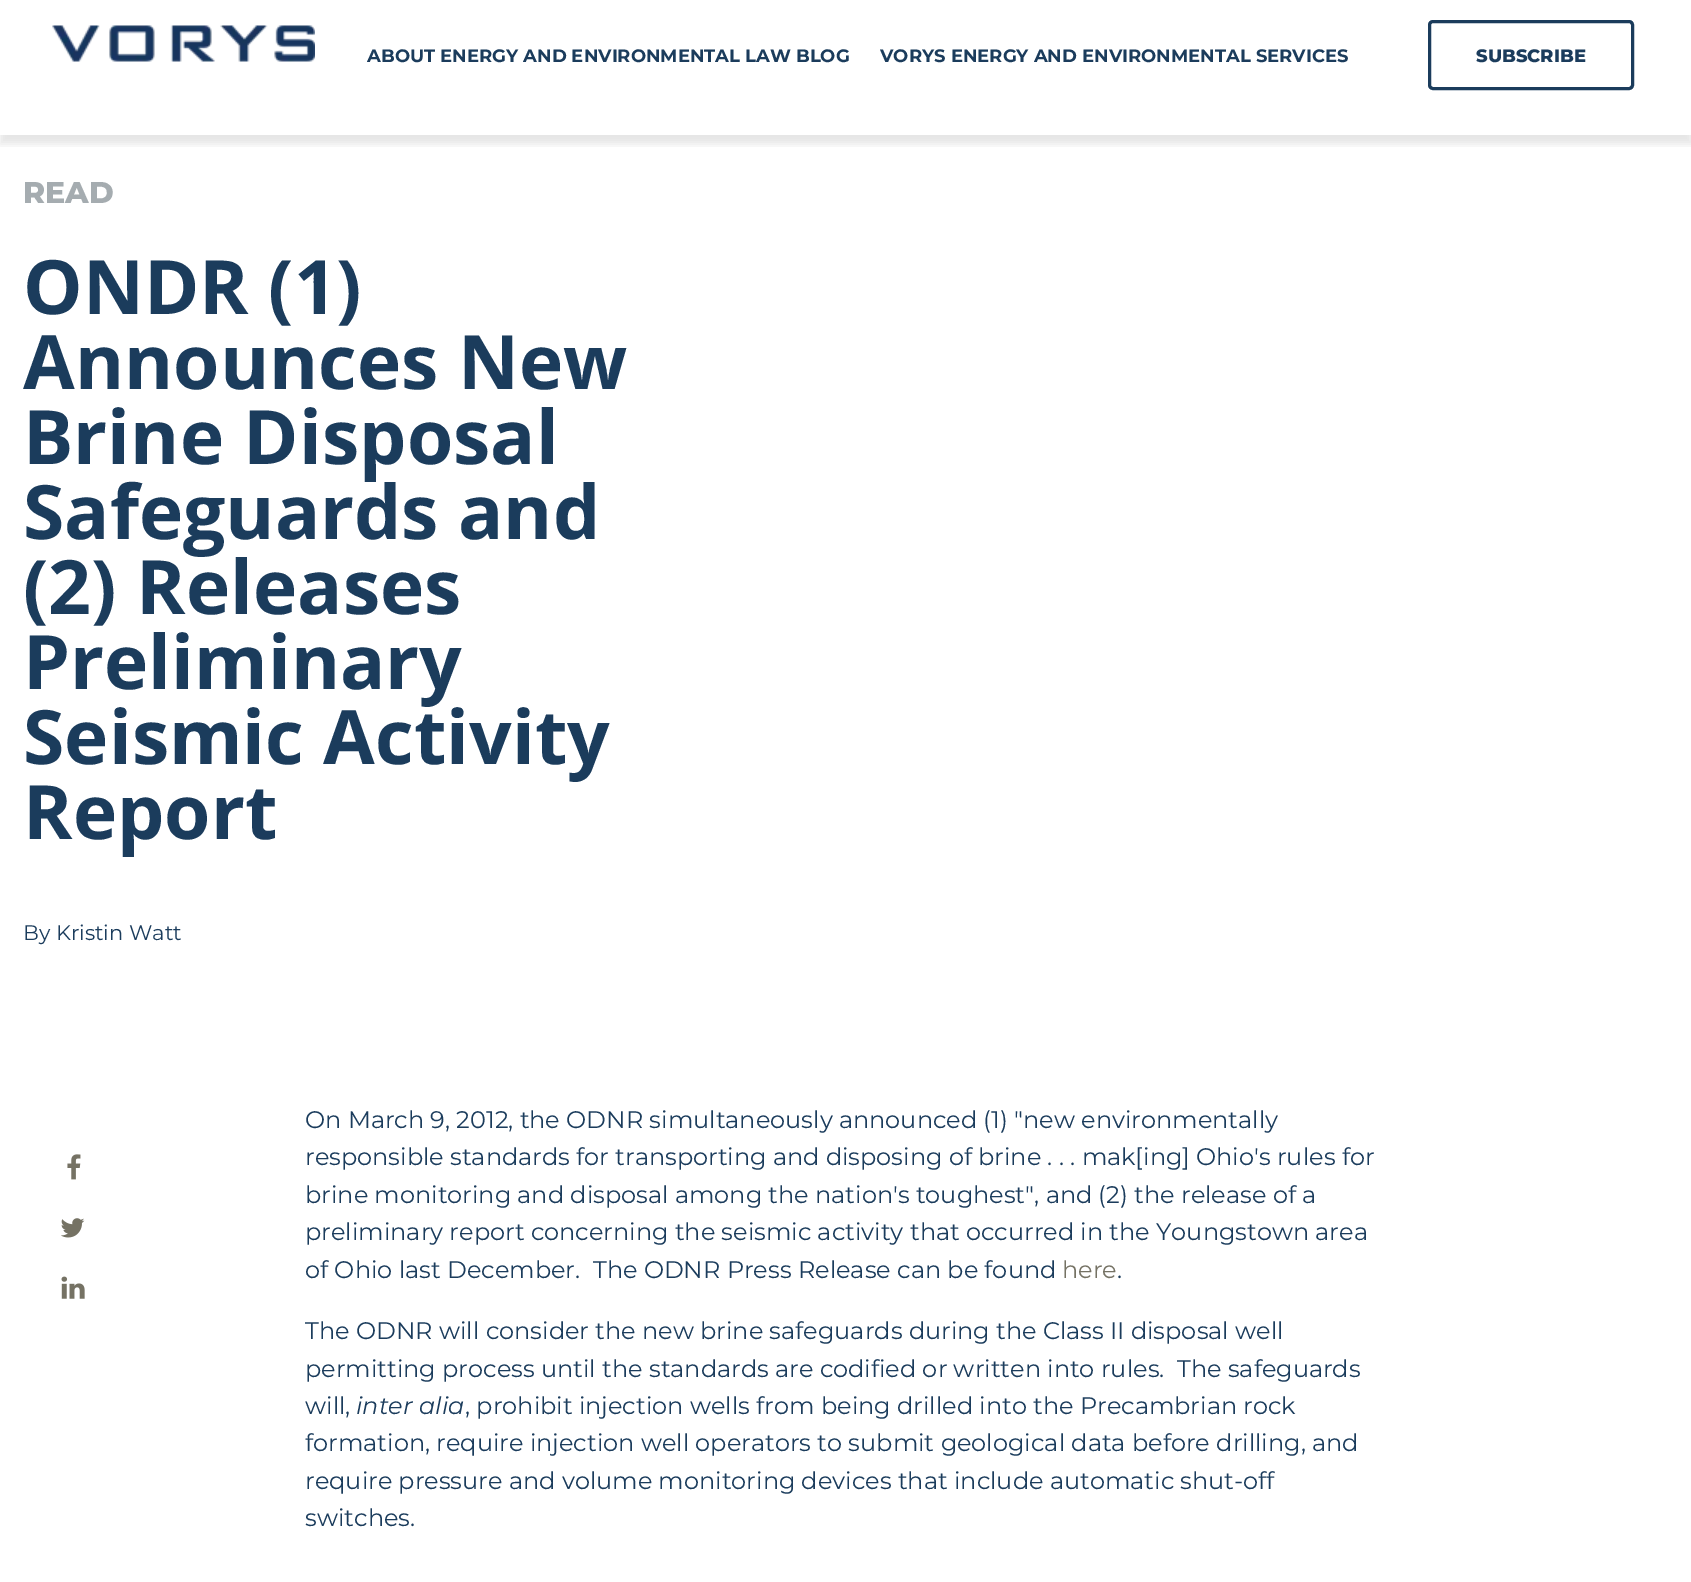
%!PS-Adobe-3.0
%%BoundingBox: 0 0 1691 1582
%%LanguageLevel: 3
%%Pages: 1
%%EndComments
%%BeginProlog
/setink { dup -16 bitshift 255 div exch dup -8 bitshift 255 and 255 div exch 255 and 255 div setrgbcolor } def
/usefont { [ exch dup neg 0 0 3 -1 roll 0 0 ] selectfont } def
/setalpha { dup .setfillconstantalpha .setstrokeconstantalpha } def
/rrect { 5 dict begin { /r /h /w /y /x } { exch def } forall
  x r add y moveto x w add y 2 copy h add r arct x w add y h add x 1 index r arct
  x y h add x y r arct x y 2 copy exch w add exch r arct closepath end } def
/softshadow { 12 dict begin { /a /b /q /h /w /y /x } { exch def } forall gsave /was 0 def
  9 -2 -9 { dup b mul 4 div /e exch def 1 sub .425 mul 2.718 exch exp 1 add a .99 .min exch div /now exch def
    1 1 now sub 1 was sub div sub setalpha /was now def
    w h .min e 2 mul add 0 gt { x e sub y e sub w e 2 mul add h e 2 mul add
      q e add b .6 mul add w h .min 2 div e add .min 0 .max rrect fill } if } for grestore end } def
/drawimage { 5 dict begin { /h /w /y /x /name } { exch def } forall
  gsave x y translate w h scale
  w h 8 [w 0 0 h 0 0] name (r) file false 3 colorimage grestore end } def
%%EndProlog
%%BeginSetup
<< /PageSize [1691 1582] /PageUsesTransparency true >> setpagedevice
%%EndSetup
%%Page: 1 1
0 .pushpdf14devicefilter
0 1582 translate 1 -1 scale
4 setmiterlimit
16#FFFFFF setink
0 0 1691 1582 rectfill
gsave
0 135 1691 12 rectclip
16#000000 setink
0 9 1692 135 0 4 0.1 softshadow
grestore
(img1.raw) 52 25 263 37 drawimage
/Montserrat-Bold 18 usefont
16#1B3C5C setink
367 62 moveto (ABOUT ENERGY AND ENVIRONMENTAL LAW BLOG) show
880 62 moveto (VORYS ENERGY AND ENVIRONMENTAL SERVICES) show
3 setlinewidth
1429.5 21.5 203 67 3.5 rrect stroke
/Montserrat-ExtraBold 18 usefont
1476 62 moveto (SUBSCRIBE) show
/Montserrat-ExtraBold 30 usefont
16#A5ACB0 setink
23 203 moveto (READ) show
/OpenSans-Bold 75 usefont
16#1B3C5C setink
[
    [(ONDR \(1\)) 23 314]
    [(Announces New) 23 389]
    [(Brine Disposal) 23 464]
    [(Safeguards and) 23 539]
    [(\(2\) Releases) 23 614]
    [(Preliminary) 23 689]
    [(Seismic Activity) 23 764]
    [(Report) 23 839]
] { aload pop moveto show } forall
/Montserrat-Regular 21 usefont
23 940 moveto (By Kristin Watt) show
(img2.raw) 67 1154 14 26 drawimage
(img3.raw) 61 1218 24 20 drawimage
(img4.raw) 61 1276 24 23 drawimage
/Montserrat-Regular 24 usefont
[
    [(On March 9, 2012, the ODNR simultaneously announced \(1\) "new environmentally) 305 1128]
    [(responsible standards for transporting and disposing of brine . . . mak[ing] Ohio's rules for) 305 1165]
    [(brine monitoring and disposal among the nation's toughest", and \(2\) the release of a) 305 1203]
    [(preliminary report concerning the seismic activity that occurred in the Youngstown area) 305 1240]
    [(of Ohio last December.  The ODNR Press Release can be found) 305 1278]
] { aload pop moveto show } forall
16#757264 setink
1062 1278 moveto (here) show
16#1B3C5C setink
[
    [(.) 1117 1278]
    [(The ODNR will consider the new brine safeguards during the Class II disposal well) 305 1339]
    [(permitting process until the standards are codified or written into rules.  The safeguards) 305 1377]
    [(will,) 305 1414]
] { aload pop moveto show } forall
/Montserrat-Italic 24 usefont
356 1414 moveto (inter alia) show
/Montserrat-Regular 24 usefont
[
    [(, prohibit injection wells from being drilled into the Precambrian rock) 465 1414]
    [(formation, require injection well operators to submit geological data before drilling, and) 305 1451]
    [(require pressure and volume monitoring devices that include automatic shut-off) 305 1489]
    [(switches.) 305 1526]
] { aload pop moveto show } forall
.poppdf14devicefilter showpage
%%EOF
